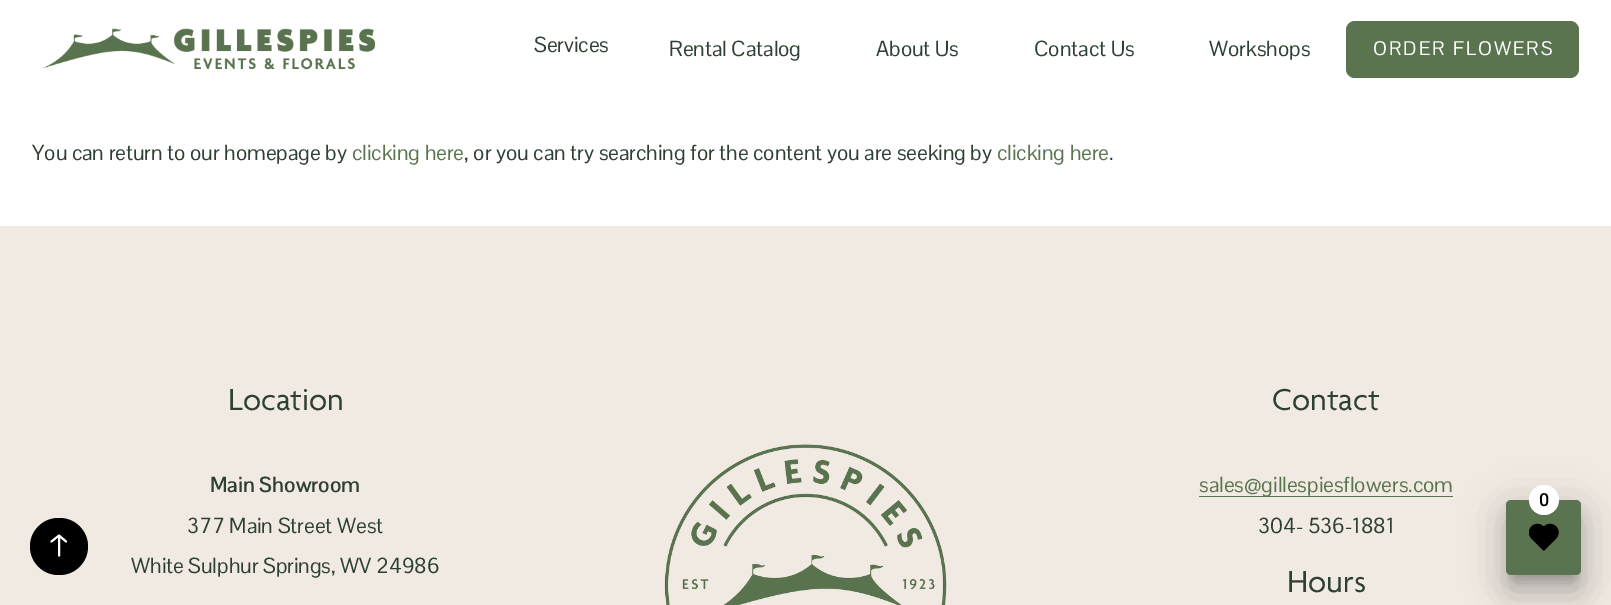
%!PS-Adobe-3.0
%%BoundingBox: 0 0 1611 605
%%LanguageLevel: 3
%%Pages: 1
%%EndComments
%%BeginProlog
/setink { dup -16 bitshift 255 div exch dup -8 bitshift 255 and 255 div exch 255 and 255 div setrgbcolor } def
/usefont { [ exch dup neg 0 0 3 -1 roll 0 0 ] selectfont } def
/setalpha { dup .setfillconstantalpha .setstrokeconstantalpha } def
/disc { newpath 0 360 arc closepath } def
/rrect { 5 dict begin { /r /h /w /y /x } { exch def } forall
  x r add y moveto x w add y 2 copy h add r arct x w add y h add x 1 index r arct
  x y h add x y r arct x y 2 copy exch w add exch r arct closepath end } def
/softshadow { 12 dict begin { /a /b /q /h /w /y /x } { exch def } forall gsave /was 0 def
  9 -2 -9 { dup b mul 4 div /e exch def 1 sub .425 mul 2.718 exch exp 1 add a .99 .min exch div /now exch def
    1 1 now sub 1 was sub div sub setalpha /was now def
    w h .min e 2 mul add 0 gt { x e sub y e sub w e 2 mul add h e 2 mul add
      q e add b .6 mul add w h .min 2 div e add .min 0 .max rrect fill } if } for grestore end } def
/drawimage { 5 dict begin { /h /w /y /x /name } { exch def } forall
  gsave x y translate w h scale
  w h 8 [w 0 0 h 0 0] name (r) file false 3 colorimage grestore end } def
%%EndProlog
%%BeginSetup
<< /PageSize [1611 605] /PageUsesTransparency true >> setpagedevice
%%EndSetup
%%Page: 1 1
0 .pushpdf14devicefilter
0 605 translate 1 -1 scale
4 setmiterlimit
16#FFFFFF setink
0 0 1611 605 rectfill
(img1.raw) 42 28 334 42 drawimage
/PontanoSans-Regular 21.25 usefont
16#2E4031 setink
[
    [(Services) 534 52]
    [(Rental Catalog) 669 56]
    [(About Us) 876 56]
    [(Contact Us) 1034 56]
    [(Workshops) 1209 56]
] { aload pop moveto show } forall
16#5B7450 setink
1346 21 233 57 9 rrect fill
/PontanoSans-Regular 19.25 usefont
16#FFFFFF setink
1373 55 moveto 2 0 (ORDER FLOWERS) ashow
/PontanoSans-Regular 21.25 usefont
16#2E4031 setink
32 160 moveto (You can return to our homepage by) show
16#5B7450 setink
352 160 moveto (clicking here) show
16#2E4031 setink
464 160 moveto (, or you can try searching for the content you are seeking by) show
16#5B7450 setink
997 160 moveto (clicking here) show
16#2E4031 setink
1109 160 moveto (.) show
16#F1EAE3 setink
0 226 1611 379 rectfill
/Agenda-Regular 33 usefont
16#2E4031 setink
228 410 moveto (Location) show
/PontanoSans-Bold 21.25 usefont
210 492 moveto (Main Showroom) show
/PontanoSans-Regular 21.25 usefont
187 533 moveto (377 Main Street West) show
131 573 moveto (White Sulphur Springs, WV 24986) show
(img2.raw) 664 444 283 161 drawimage
/Agenda-Regular 33 usefont
1272 410 moveto (Contact) show
16#5B7450 setink
1199 496 254 1 rectfill
/PontanoSans-Regular 21.25 usefont
1199 492 moveto (sales@gillespiesflowers.com) show
16#2E4031 setink
1258 533 moveto (304- 536-1881) show
/Agenda-Regular 33 usefont
1287 592 moveto (Hours) show
16#000000 setink
1513 516 62 63 0 6 0.2 softshadow
1500 501 88 88 11 19 0.12 softshadow
1504 518 80 80 8 15 0.14 softshadow
16#5B7450 setink
1506 500 75 75 5 rrect fill
16#FFFFFF setink
1544 500 15 disc fill
/Roboto-Medium 18 usefont
16#000000 setink
1539 506 moveto -1 0 (0) ashow
(img3.raw) 1529 523 30 28 drawimage
30 518 58 57 28.5 rrect fill
16#FFFFFF setink
2 setlinewidth
1 setlinecap
1 setlinejoin
59 537.5 moveto 59 555.5 lineto 66 541.5 moveto 59 535.5 lineto 51.5 541.5 lineto stroke
.poppdf14devicefilter showpage
%%EOF
